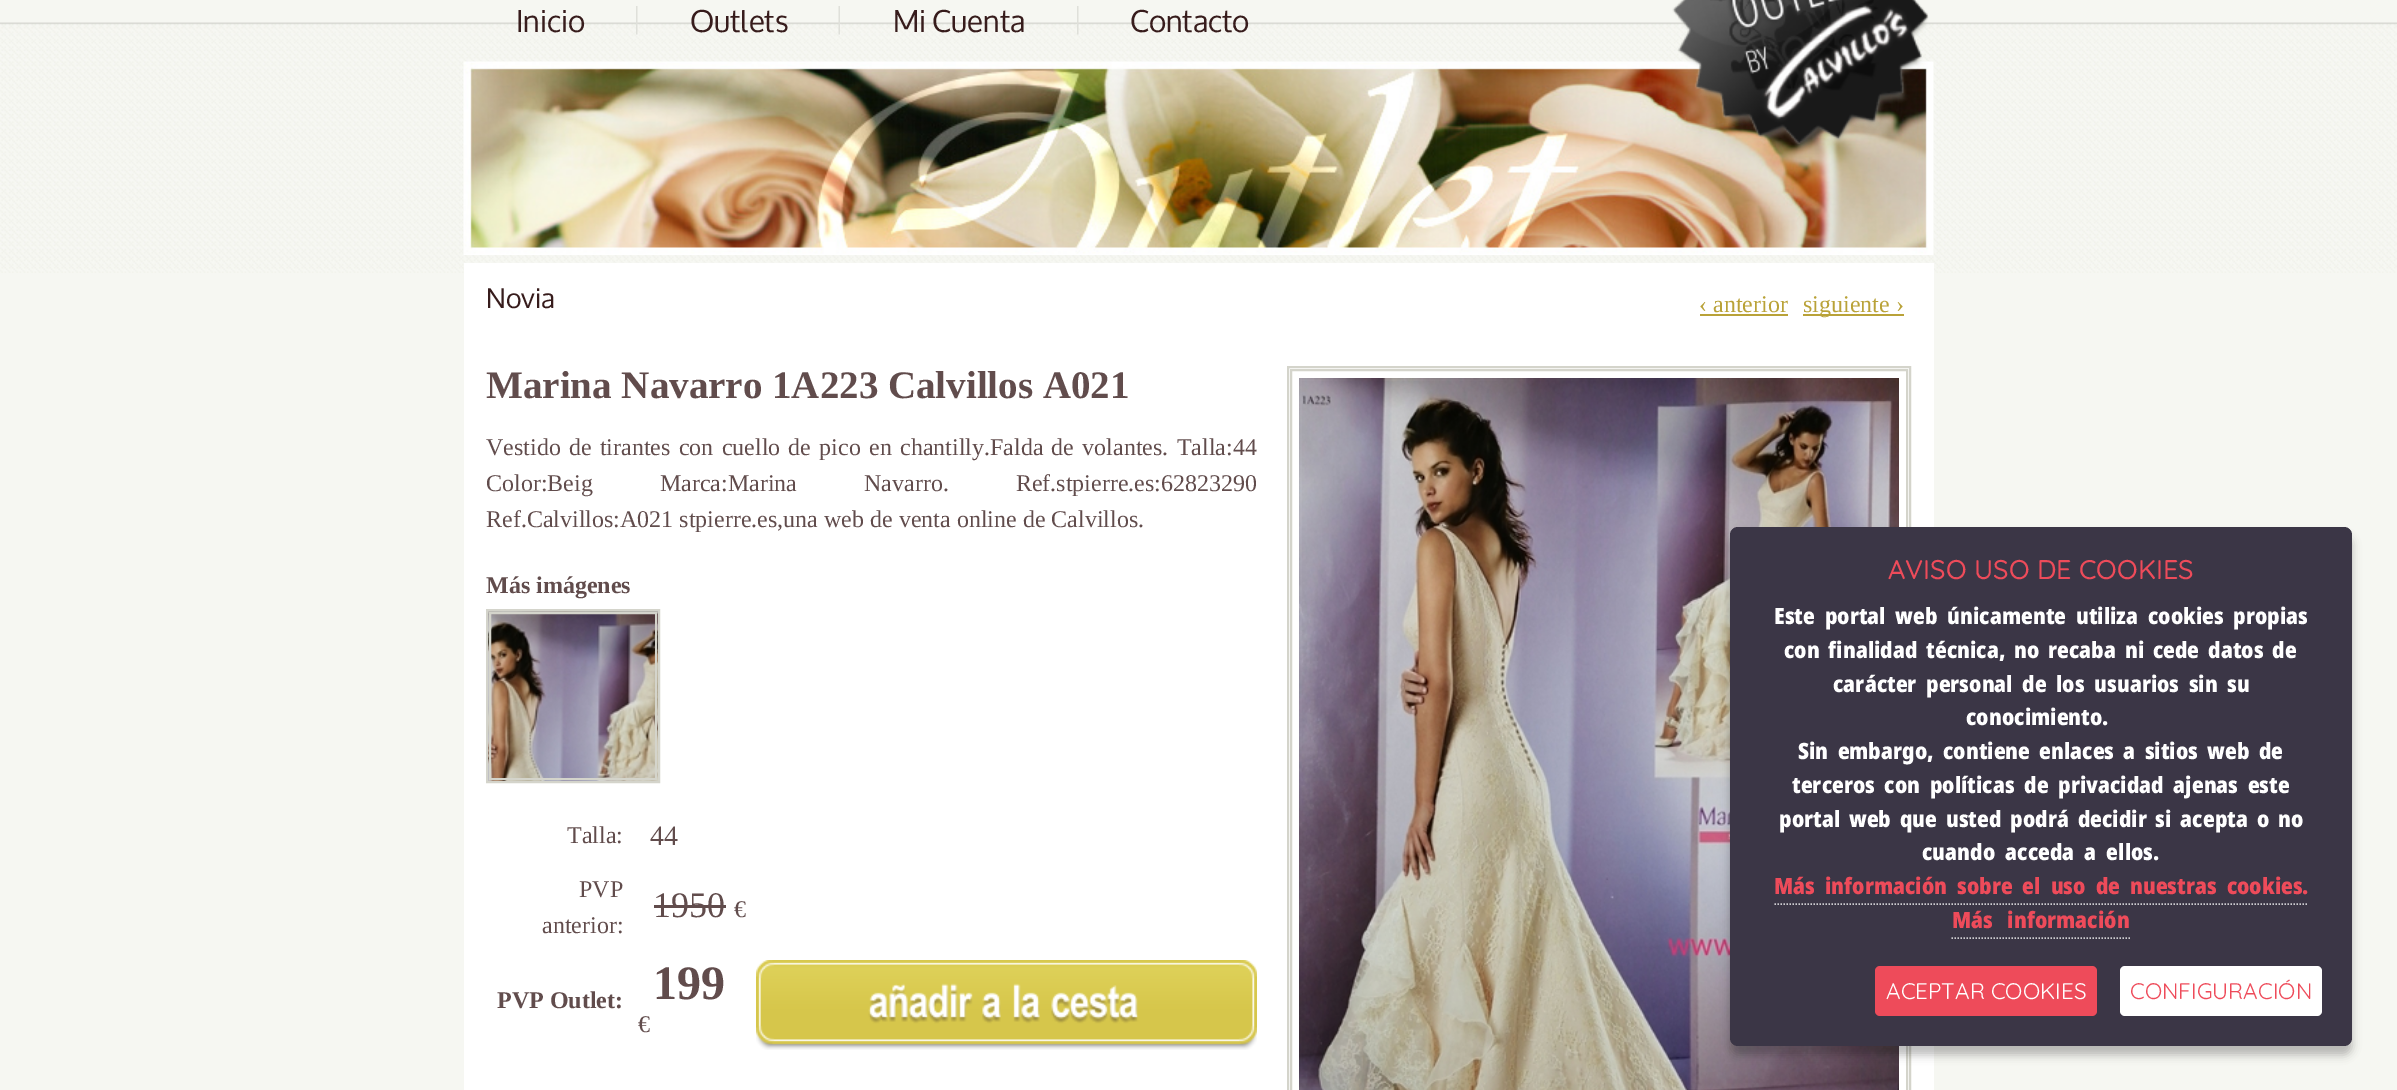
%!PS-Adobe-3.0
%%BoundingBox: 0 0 2397 1090
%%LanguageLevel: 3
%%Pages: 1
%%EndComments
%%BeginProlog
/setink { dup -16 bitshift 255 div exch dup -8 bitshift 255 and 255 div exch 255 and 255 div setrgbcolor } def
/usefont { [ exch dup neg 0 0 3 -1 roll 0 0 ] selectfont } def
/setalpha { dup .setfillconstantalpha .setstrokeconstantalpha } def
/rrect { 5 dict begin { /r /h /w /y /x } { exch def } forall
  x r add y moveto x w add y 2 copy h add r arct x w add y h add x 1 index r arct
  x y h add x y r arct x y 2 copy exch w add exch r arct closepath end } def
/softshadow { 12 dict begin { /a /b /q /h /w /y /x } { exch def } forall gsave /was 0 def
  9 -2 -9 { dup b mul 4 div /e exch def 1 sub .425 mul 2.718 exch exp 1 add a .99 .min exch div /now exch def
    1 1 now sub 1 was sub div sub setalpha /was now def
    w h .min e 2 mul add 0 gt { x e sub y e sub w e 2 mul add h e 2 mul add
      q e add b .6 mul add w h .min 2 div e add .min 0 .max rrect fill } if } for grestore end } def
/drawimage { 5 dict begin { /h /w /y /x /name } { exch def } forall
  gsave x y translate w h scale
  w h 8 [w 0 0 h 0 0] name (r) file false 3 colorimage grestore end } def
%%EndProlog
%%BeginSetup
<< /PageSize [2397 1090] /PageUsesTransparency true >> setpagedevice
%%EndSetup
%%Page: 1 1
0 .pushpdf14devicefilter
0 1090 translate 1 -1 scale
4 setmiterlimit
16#F6F7F2 setink
0 0 2397 1090 rectfill
(img1.raw) 0 22 2397 251 drawimage
(img2.raw) 636 6 2 29 drawimage
/Oxygen-Regular 30 usefont
16#371C1C setink
516 32 moveto (Inicio) show
(img3.raw) 838 6 2 29 drawimage
690 32 moveto (Outlets) show
(img4.raw) 1077 6 2 29 drawimage
893 32 moveto (Mi Cuenta) show
1130 32 moveto (Contacto) show
(img6.raw) 463 61 1471 194 drawimage
(img5.raw) 1672 0 257 150 drawimage
16#FFFFFF setink
464 263 1470 827 rectfill
/Oxygen-Regular 27 usefont
16#371C1C setink
486 308 moveto (Novia) show
/LiberationSerif-Regular 24 usefont
16#B9A238 setink
1699 312 moveto (‹ anterior) show
1700 314 88 2 rectfill
1803 314 101 2 rectfill
1803 312 moveto (siguiente ›) show
/LiberationSerif-Bold 39 usefont
16#614C4C setink
486 398 moveto (Marina Navarro 1A223 Calvillos A021) show
/LiberationSerif-Regular 24 usefont
486 455 moveto 2.25 0 32 (Vestido de tirantes con cuello de pico en chantilly.Falda de volantes. Talla:44) widthshow
486 491 moveto 61 0 32 (Color:Beig Marca:Marina Navarro. Ref.stpierre.es:62823290) widthshow
486 527 moveto (Ref.Calvillos:A021 stpierre.es,una web de venta online de Calvillos.) show
/LiberationSerif-Bold 24 usefont
486 593 moveto (Más imágenes) show
(img7.raw) 488 611 170 170 drawimage
16#D4D4CB setink
2 setlinewidth
487 610 172 172 rectstroke
490 613 166 166 rectstroke
/LiberationSerif-Regular 24 usefont
16#614C4C setink
567 843 moveto (Talla:) show
/LiberationSerif-Regular 28 usefont
650 845 moveto (44) show
/LiberationSerif-Regular 24 usefont
579 897 moveto (PVP) show
542 933 moveto (anterior:) show
/LiberationSerif-Regular 36 usefont
653 917 moveto (1950) show
654 905 72 3 rectfill
/LiberationSerif-Regular 24 usefont
734 917 moveto (€) show
/LiberationSerif-Bold 24 usefont
497 1008 moveto (PVP Outlet:) show
/LiberationSerif-Bold 48 usefont
653 999 moveto (199) show
/LiberationSerif-Regular 24 usefont
638 1032 moveto (€) show
(img8.raw) 756 960 501 90 drawimage
16#D4D4CB setink
1288 367 622 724 rectstroke
1291 370 616 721 rectstroke
(img9.raw) 1299 378 600 712 drawimage
16#000000 setink
1730 536 622 519 8 4.5 0.25 softshadow
16#3B3646 setink
1730 527 622 519 8 rrect fill
/Quicksand-Medium 27 usefont
16#EE4B5A setink
1888 579 moveto (AVISO USO DE COOKIES) show
/NotoSans-Black 22.5 usefont
16#FFFFFF setink
1774 624 moveto 5.25 0 32 (Este portal web únicamente utiliza cookies propias) widthshow
1784 658 moveto 4.25 0 32 (con finalidad técnica, no recaba ni cede datos de) widthshow
1833 692 moveto 5 0 32 (carácter personal de los usuarios sin su) widthshow
1966 725 moveto (conocimiento.) show
1798 759 moveto 4.75 0 32 (Sin embargo, contiene enlaces a sitios web de) widthshow
1792 793 moveto 5 0 32 (terceros con políticas de privacidad ajenas este) widthshow
1779 827 moveto 4.25 0 32 (portal web que usted podrá decidir si acepta o no) widthshow
1922 860 moveto 5.5 0 32 (cuando acceda a ellos.) widthshow
16#EE4B5A setink
1774 894 moveto 5.5 0 32 (Más información sobre el uso de nuestras cookies.) widthshow
16#CECDD1 setink
1.5 setlinewidth
[1.5 1.5] 0 setdash
1774.5 904 moveto 2307 904 lineto stroke
16#EE4B5A setink
1952 928 moveto 10 0 32 (Más información) widthshow
16#CECDD1 setink
1951.5 938 moveto 2130 938 lineto stroke
16#EE4B5A setink
1875 966 222 50 5 rrect fill
/Quicksand-Regular 22.5 usefont
16#FFFFFF setink
1886 999 moveto (ACEPTAR COOKIES) show
2120 966 202 50 5 rrect fill
16#EE4B5A setink
2130 999 moveto (CONFIGURACIÓN) show
.poppdf14devicefilter showpage
%%EOF
